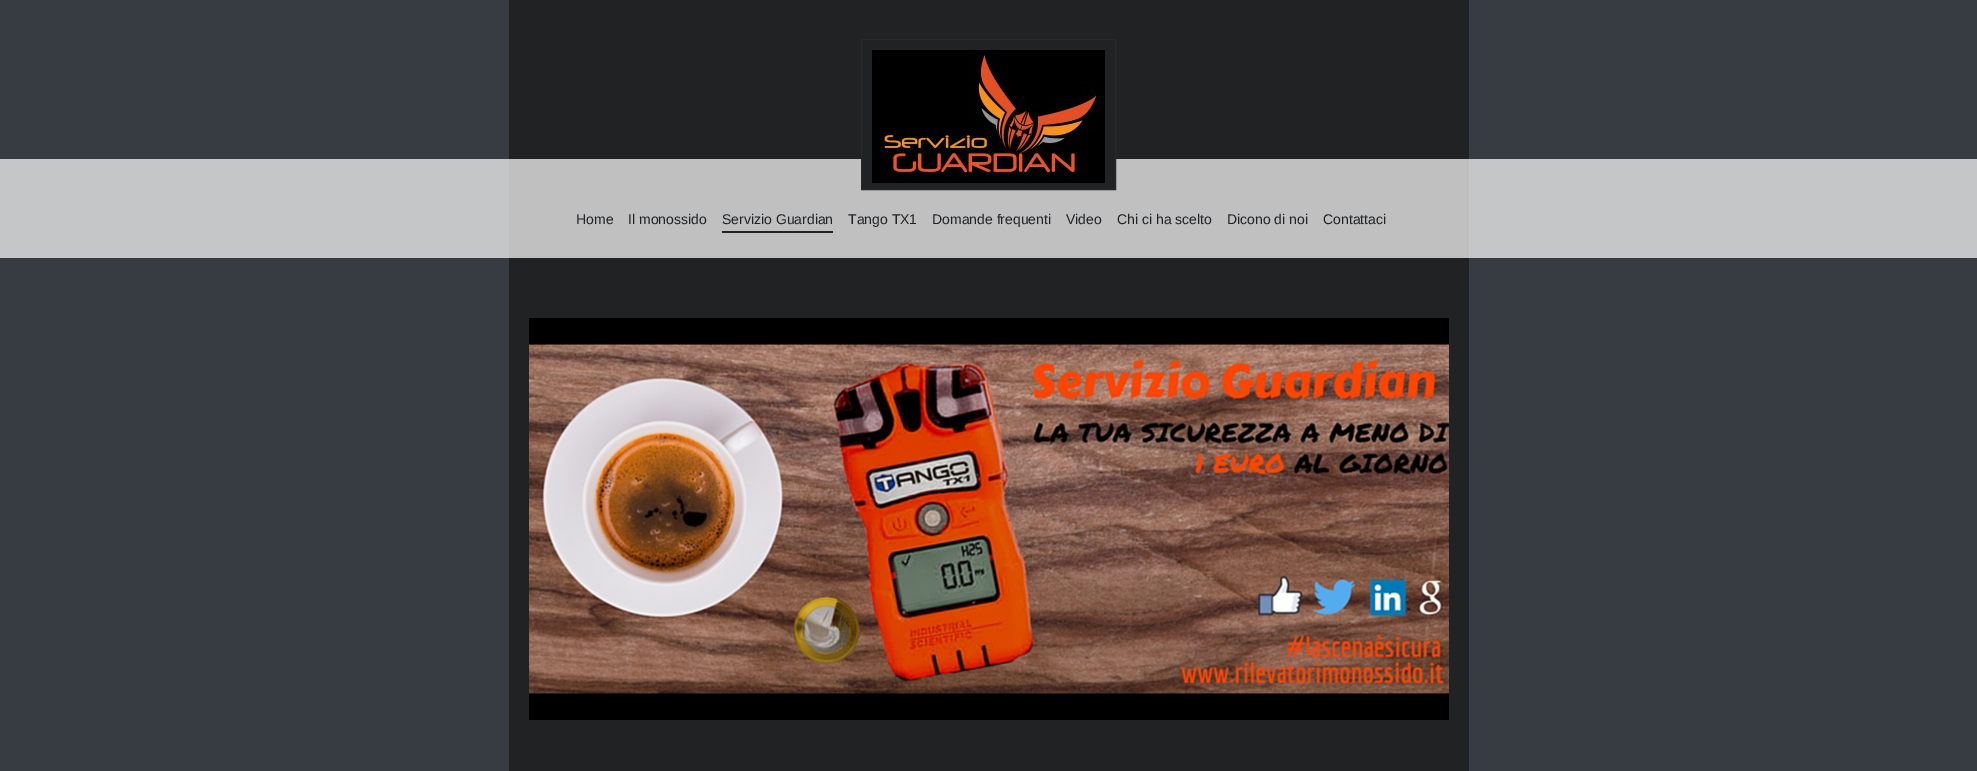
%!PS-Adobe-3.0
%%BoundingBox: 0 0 1977 771
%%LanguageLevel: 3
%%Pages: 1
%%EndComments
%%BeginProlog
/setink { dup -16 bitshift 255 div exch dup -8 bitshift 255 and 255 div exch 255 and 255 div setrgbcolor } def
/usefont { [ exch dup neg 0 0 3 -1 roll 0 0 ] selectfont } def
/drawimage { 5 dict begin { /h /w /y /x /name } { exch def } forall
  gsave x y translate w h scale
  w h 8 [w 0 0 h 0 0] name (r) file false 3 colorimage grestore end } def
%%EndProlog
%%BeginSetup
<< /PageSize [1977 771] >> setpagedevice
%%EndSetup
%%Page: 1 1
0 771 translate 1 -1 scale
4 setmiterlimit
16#373C42 setink
0 0 1977 771 rectfill
[
    [0 159 1977 99 16#C5C6C7]
    [509 0 960 771 16#212224]
    [509 159 960 99 16#C0C0C1]
] { aload pop setink rectfill } forall
16#28292B setink
861.5 39.5 254 150 rectstroke
16#212224 setink
862 159 253 30 rectfill
(img1.raw) 872 50 233 133 drawimage
/LiberationSans-Regular 14 usefont
576 224 moveto (Home) show
628 224 moveto (Il monossido) show
722 231 111 2 rectfill
[
    [(Servizio Guardian) 722 224]
    [(Tango TX1) 848 224]
    [(Domande frequenti) 932 224]
    [(Video) 1066 224]
    [(Chi ci ha scelto) 1117 224]
    [(Dicono di noi) 1227 224]
    [(Contattaci) 1323 224]
] { aload pop moveto show } forall
(img2.raw) 529 318 920 402 drawimage
showpage
%%EOF
